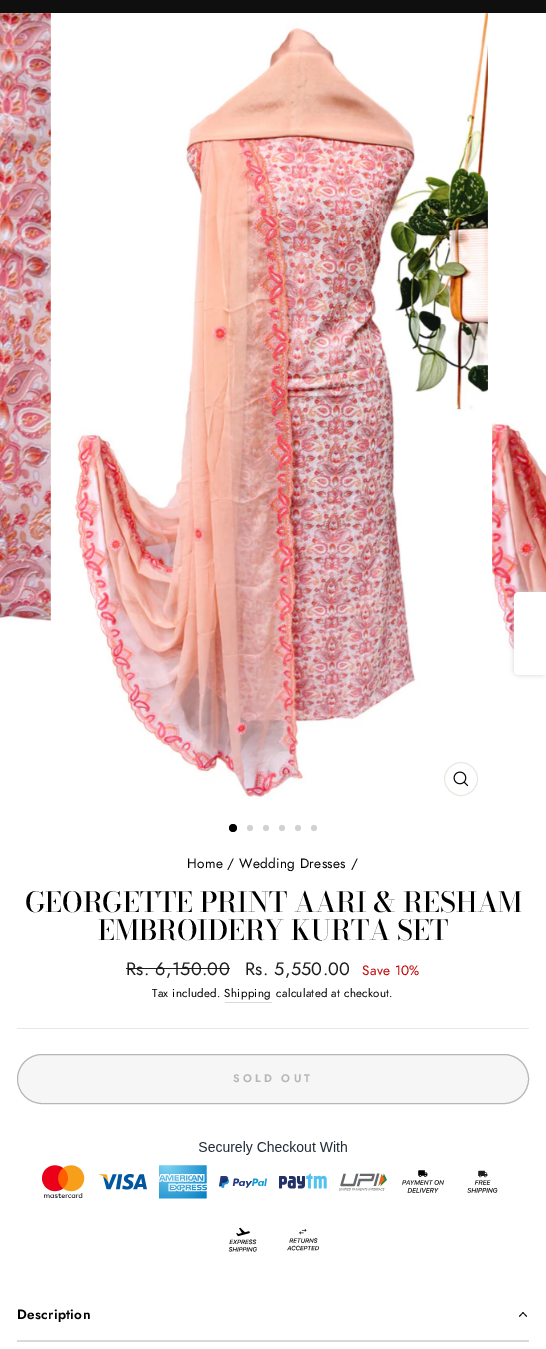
%!PS-Adobe-3.0
%%BoundingBox: 0 0 546 1349
%%LanguageLevel: 3
%%Pages: 1
%%EndComments
%%BeginProlog
/setink { dup -16 bitshift 255 div exch dup -8 bitshift 255 and 255 div exch 255 and 255 div setrgbcolor } def
/usefont { [ exch dup neg 0 0 3 -1 roll 0 0 ] selectfont } def
/setalpha { dup .setfillconstantalpha .setstrokeconstantalpha } def
/disc { newpath 0 360 arc closepath } def
/rrect { 5 dict begin { /r /h /w /y /x } { exch def } forall
  x r add y moveto x w add y 2 copy h add r arct x w add y h add x 1 index r arct
  x y h add x y r arct x y 2 copy exch w add exch r arct closepath end } def
/softshadow { 12 dict begin { /a /b /q /h /w /y /x } { exch def } forall gsave /was 0 def
  9 -2 -9 { dup b mul 4 div /e exch def 1 sub .425 mul 2.718 exch exp 1 add a .99 .min exch div /now exch def
    1 1 now sub 1 was sub div sub setalpha /was now def
    w h .min e 2 mul add 0 gt { x e sub y e sub w e 2 mul add h e 2 mul add
      q e add b .6 mul add w h .min 2 div e add .min 0 .max rrect fill } if } for grestore end } def
/drawimage { 5 dict begin { /h /w /y /x /name } { exch def } forall
  gsave x y translate w h scale
  w h 8 [w 0 0 h 0 0] name (r) file false 3 colorimage grestore end } def
%%EndProlog
%%BeginSetup
<< /PageSize [546 1349] /PageUsesTransparency true >> setpagedevice
%%EndSetup
%%Page: 1 1
0 .pushpdf14devicefilter
0 1349 translate 1 -1 scale
4 setmiterlimit
16#FFFFFF setink
0 0 546 1349 rectfill
(img4.raw) 492 423 54 239 drawimage
16#D3D3D3 setink
514 592 32 83 5 2.5 1 softshadow
16#FFFFFF setink
519 592 moveto 546 592 lineto 546 675 lineto 519 675 lineto 516 675 514 673 514 670 curveto 514 597 lineto 514 594 516 592 519 592 curveto closepath fill
16#0F0F0F setink
0 0 546 13 rectfill
(img1.raw) 0 13 51 609 drawimage
(img2.raw) 74 13 414 786 drawimage
16#E8E8E1 setink
461 779 16.5 disc stroke
(img3.raw) 453 771 16 16 drawimage
16#000000 setink
233 828 4 disc fill
16#D1D1D1 setink
250 828 3 disc fill
266 828 3 disc fill
282 828 3 disc fill
298 828 3 disc fill
314 828 3 disc fill
/Jost-Regular 13.6 usefont
16#000000 setink
187 868 moveto 0.3 0 (Home / Wedding Dresses /) ashow
/BodoniModa-Medium 27.75 usefont
25 912 moveto (GEORGETTE PRINT AARI & RESHAM) show
98 940 moveto (EMBROIDERY KURTA SET) show
/Jost-Regular 18 usefont
16#1C1D1D setink
126 975 moveto 0.3 0 (Rs. 6,150.00) ashow
126 968 104 1 rectfill
245 975 moveto 0.3 0 (Rs. 5,550.00) ashow
/Jost-Regular 13.6 usefont
16#C20000 setink
362 975 moveto 0.3 0 (Save 10%) ashow
/Jost-Regular 11.5 usefont
16#000000 setink
152 997 moveto 0.3 0 (Tax included. Shipping) ashow
276 997 moveto 0.3 0 (calculated at checkout.) ashow
16#D9D9D9 setink
225 1002 47 1 rectfill
16#E8E8E1 setink
17 1028 512 1 rectfill
16#F6F6F6 setink
17.5 1054.5 511 49 24.5 rrect gsave fill grestore
16#B6B6B6 setink
stroke
/Jost-SemiBold 11 usefont
233 1082 moveto 3.25 0 (SOLD OUT) ashow
(img5.raw) 41 1141 457 111 drawimage
16#D9D9D9 setink
17 1340 512 2 rectfill
/Jost-SemiBold 13.6 usefont
16#000000 setink
17 1319 moveto 0.3 0 (Description) ashow
519.5 1317 moveto 519 1316 lineto 523 1312 lineto 523.5 1312.5 lineto closepath fill
526.5 1317 moveto 522.5 1312.5 lineto 523 1312 lineto 527 1316 lineto closepath fill
.poppdf14devicefilter showpage
%%EOF
